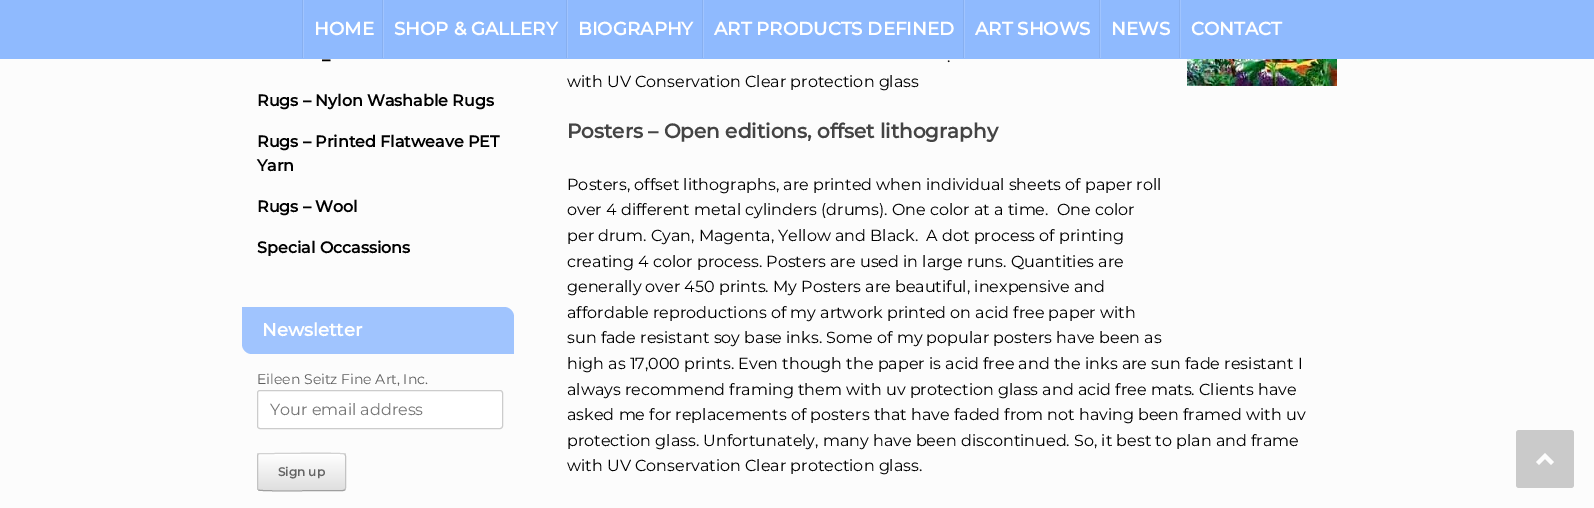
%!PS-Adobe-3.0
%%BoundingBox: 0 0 1594 508
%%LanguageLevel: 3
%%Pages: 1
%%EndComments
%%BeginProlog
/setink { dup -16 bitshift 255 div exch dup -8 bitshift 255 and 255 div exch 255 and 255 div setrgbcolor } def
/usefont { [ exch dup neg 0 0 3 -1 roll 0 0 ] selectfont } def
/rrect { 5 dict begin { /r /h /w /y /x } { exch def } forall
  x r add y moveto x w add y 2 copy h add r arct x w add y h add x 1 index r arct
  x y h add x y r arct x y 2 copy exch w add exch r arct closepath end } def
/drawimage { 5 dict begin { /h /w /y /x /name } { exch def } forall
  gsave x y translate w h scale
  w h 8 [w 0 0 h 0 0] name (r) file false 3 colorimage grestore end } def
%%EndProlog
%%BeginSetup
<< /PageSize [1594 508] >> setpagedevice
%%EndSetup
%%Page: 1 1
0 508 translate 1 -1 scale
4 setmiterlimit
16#FCFCFC setink
0 0 1594 508 rectfill
[
    [0 0 1594 59 16#8FBAFE]
    [302 0 1 58 16#87AFEF]
    [303 0 1 58 16#A0C4FE]
] { aload pop setink rectfill } forall
/Montserrat-Bold 18.25 usefont
16#FFFFFF setink
314 35 moveto (HOME) show
16#87AFEF setink
382 0 1 58 rectfill
16#A0C4FE setink
383 0 1 58 rectfill
16#FFFFFF setink
394 35 moveto (SHOP & GALLERY) show
16#87AFEF setink
566 0 1 58 rectfill
16#A0C4FE setink
567 0 1 58 rectfill
16#FFFFFF setink
578 35 moveto (BIOGRAPHY) show
16#87AFEF setink
702 0 1 58 rectfill
16#A0C4FE setink
703 0 1 58 rectfill
16#FFFFFF setink
714 35 moveto (ART PRODUCTS DEFINED) show
16#87AFEF setink
963 0 1 58 rectfill
16#A0C4FE setink
964 0 1 58 rectfill
16#FFFFFF setink
975 35 moveto (ART SHOWS) show
16#87AFEF setink
1099 0 1 58 rectfill
16#A0C4FE setink
1100 0 1 58 rectfill
16#FFFFFF setink
1111 35 moveto (NEWS) show
16#87AFEF setink
1179 0 1 58 rectfill
16#A0C4FE setink
1180 0 1 58 rectfill
16#FFFFFF setink
1191 35 moveto (CONTACT) show
/Montserrat-Bold 16 usefont
16#000000 setink
[
    [(–) 322 65]
    [(Rugs – Nylon Washable Rugs) 257 106]
    [(Rugs – Printed Flatweave PET) 257 147]
    [(Yarn) 257 171]
    [(Rugs – Wool) 257 212]
    [(Special Occassions) 257 253]
] { aload pop moveto show } forall
16#A0C4FE setink
242 307 moveto 504 307 lineto 509.5 307 514 311.5 514 317 curveto 514 354 lineto 252 354 lineto 246.5 354 242 349.5 242 344 curveto closepath fill
/Montserrat-Bold 18 usefont
16#FFFFFF setink
262 336 moveto (Newsletter) show
/Montserrat-Regular 14 usefont
16#5E5E5E setink
257 384 moveto (Eileen Seitz Fine Art, Inc.) show
16#FFFFFF setink
257.5 390.5 245 38 2.5 rrect gsave fill grestore
16#CCCCCC setink
stroke
/Montserrat-Regular 16 usefont
16#757575 setink
270 415 moveto (Your email address) show
gsave
257 453 89 38 3 rrect clip newpath
gsave 257 453 moveto 346 453 lineto 346 454 lineto 257 454 lineto closepath clip newpath
<< /ShadingType 2 /ColorSpace /DeviceRGB /Coords [258 454 258 418] /Extend [true true] /Function << /FunctionType 2 /Domain [0 1] /C0 [0.875 0.875 0.875] /C1 [1 1 1] /N 1 >> >> shfill grestore
gsave 257 454 moveto 346 454 lineto 346 490 lineto 257 490 lineto closepath clip newpath
<< /ShadingType 2 /ColorSpace /DeviceRGB /Coords [258 490 258 454] /Extend [true true] /Function << /FunctionType 2 /Domain [0 1] /C0 [0.875 0.875 0.875] /C1 [1 1 1] /N 1 >> >> shfill grestore
gsave 257 490 moveto 346 490 lineto 346 491 lineto 257 491 lineto closepath clip newpath
<< /ShadingType 2 /ColorSpace /DeviceRGB /Coords [258 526 258 490] /Extend [true true] /Function << /FunctionType 2 /Domain [0 1] /C0 [0.875 0.875 0.875] /C1 [1 1 1] /N 1 >> >> shfill grestore
grestore
16#D2D2D2 setink
258 454 moveto 260 453.5 lineto 274 453.5 lineto 281 453.5 342.5 452.5 344.5 454 curveto 345 454 lineto stroke
16#C3C3C3 setink
345 454 moveto 345 454.5 345.5 455.5 345.5 456 curveto 345.5 488 lineto 345.5 488.5 345 489.5 345 490 curveto stroke
16#9F9F9F setink
345 490 moveto 343 490.5 lineto 329 490.5 lineto 322 490.5 260.5 491.5 258.5 490 curveto 258 490 lineto stroke
16#C3C3C3 setink
258 490 moveto 258 489.5 257.5 488.5 257.5 488 curveto 257.5 456 lineto 257.5 455.5 258 454.5 258 454 curveto stroke
/Montserrat-Bold 12 usefont
16#646464 setink
278 476 moveto (Sign up) show
/Montserrat-Regular 16 usefont
16#000000 setink
947 62 moveto (.) show
567 87 moveto (with UV Conservation Clear protection glass) show
(img1.raw) 1187 59 150 27 drawimage
/Montserrat-Bold 20 usefont
16#444444 setink
567 138 moveto (Posters – Open editions, offset lithography) show
/Montserrat-Regular 16 usefont
16#000000 setink
[
    [(Posters, offset lithographs, are printed when individual sheets of paper roll) 567 190]
    [(over 4 different metal cylinders \(drums\). One color at a time.  One color) 567 215]
    [(per drum. Cyan, Magenta, Yellow and Black.  A dot process of printing) 567 241]
    [(creating 4 color process. Posters are used in large runs. Quantities are) 567 267]
    [(generally over 450 prints. My Posters are beautiful, inexpensive and) 567 292]
    [(affordable reproductions of my artwork printed on acid free paper with) 567 318]
    [(sun fade resistant soy base inks. Some of my popular posters have been as) 567 343]
    [(high as 17,000 prints. Even though the paper is acid free and the inks are sun fade resistant I) 567 369]
    [(always recommend framing them with uv protection glass and acid free mats. Clients have) 567 395]
    [(asked me for replacements of posters that have faded from not having been framed with uv) 567 420]
    [(protection glass. Unfortunately, many have been discontinued. So, it best to plan and frame) 567 446]
    [(with UV Conservation Clear protection glass.) 567 471]
] { aload pop moveto show } forall
16#CACACA setink
1516 430 58 58 3 rrect fill
16#FDFDFD setink
1554 462 moveto 1545 453 lineto 1536 462 lineto 1539 465 lineto 1545 459 lineto 1551 465 lineto closepath fill
showpage
%%EOF
